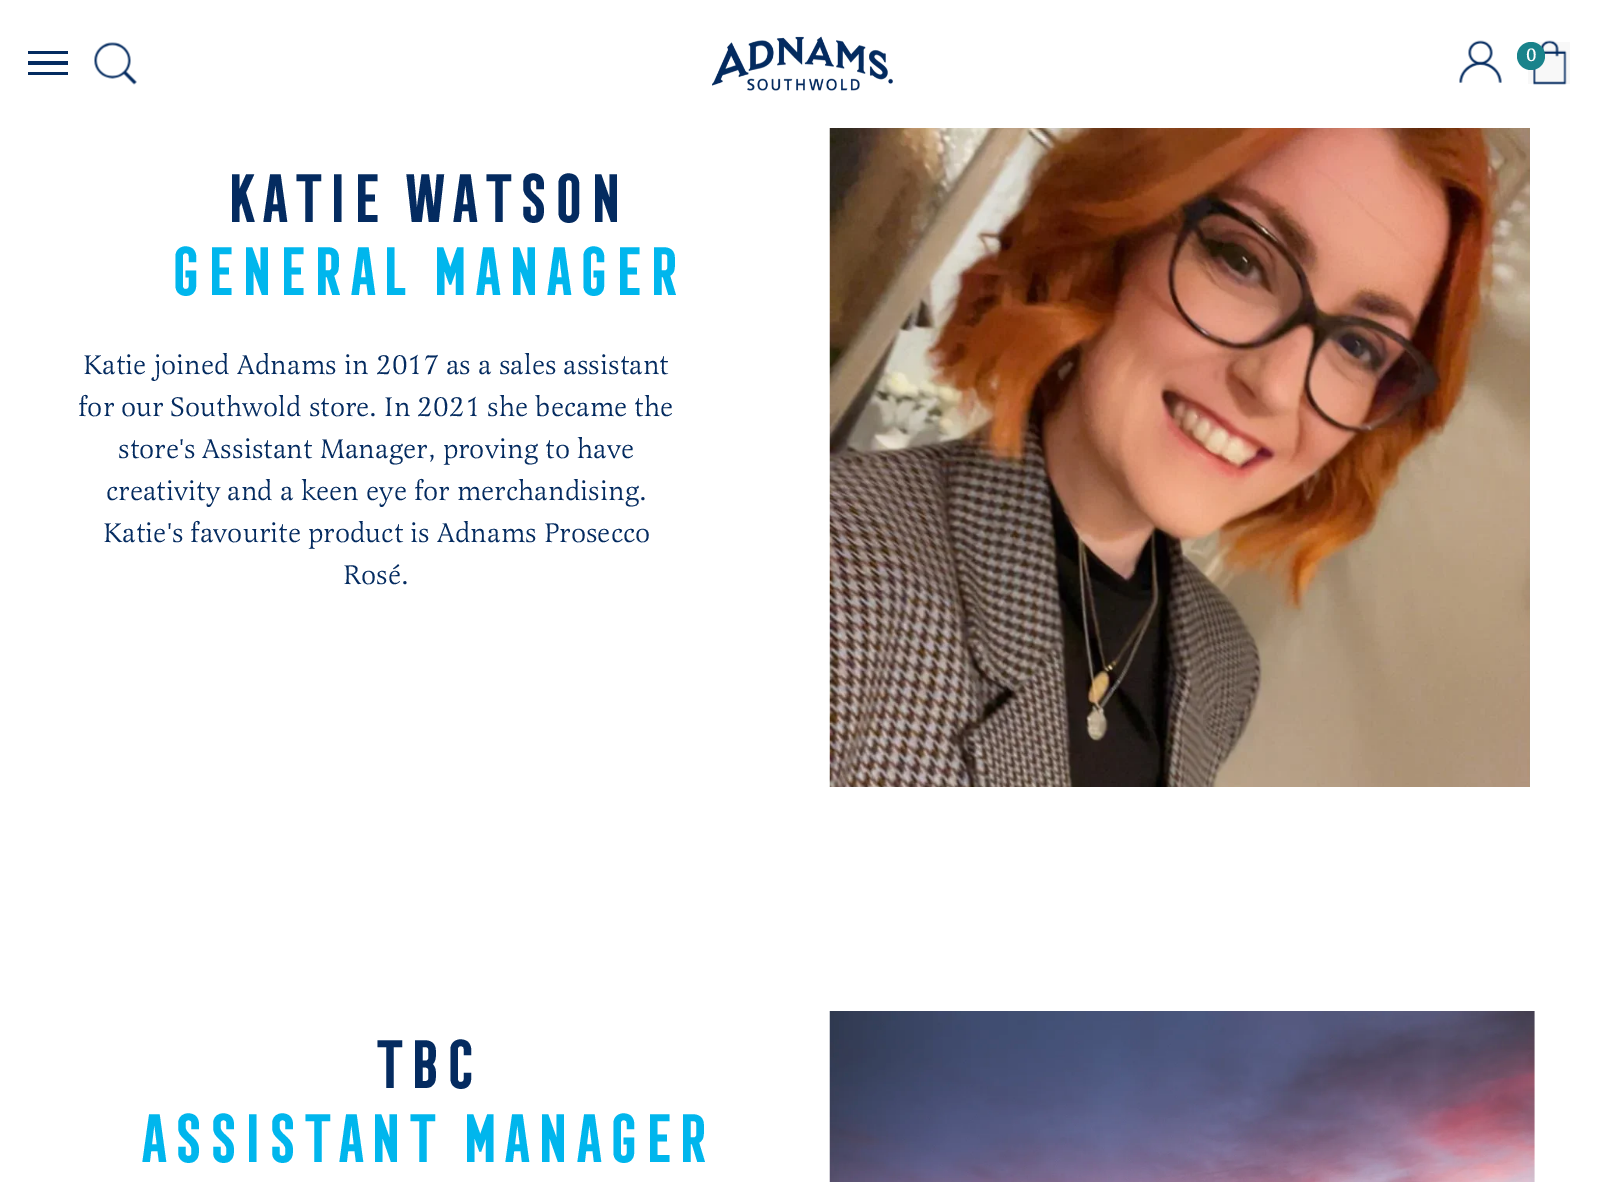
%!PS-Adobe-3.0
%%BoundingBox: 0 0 1604 1182
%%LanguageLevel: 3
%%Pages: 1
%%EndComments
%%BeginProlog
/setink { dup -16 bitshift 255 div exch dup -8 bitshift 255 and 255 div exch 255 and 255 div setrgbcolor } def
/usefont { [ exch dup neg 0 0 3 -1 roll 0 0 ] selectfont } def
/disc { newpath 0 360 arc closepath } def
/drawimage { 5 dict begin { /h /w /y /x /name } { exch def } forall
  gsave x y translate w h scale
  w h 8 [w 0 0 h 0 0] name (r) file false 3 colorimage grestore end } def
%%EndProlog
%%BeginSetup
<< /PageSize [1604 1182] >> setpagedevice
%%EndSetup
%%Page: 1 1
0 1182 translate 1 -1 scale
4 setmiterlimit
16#FFFFFF setink
0 0 1604 1182 rectfill
[
    [28 51 40 3 16#042B60]
    [28 61 40 4 16#042B60]
    [28 72 40 3 16#042B60]
] { aload pop setink rectfill } forall
(img1.raw) 94 42 43 43 drawimage
(img2.raw) 712 36 181 55 drawimage
(img3.raw) 1459 40 43 43 drawimage
16#F8F8F8 setink
1528 42 42 42 rectfill
(img4.raw) 1533 40 34 45 drawimage
16#19838B setink
1531 56 14 disc fill
/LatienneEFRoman-Bold 18 usefont
16#FFFFFF setink
1526 61 moveto (0) show
/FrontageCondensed-Bold 63 usefont
16#042B60 setink
222 222 moveto (Katie Watson) show
16#00B6ED setink
166 295 moveto (general MANAGER) show
/LatienneEFRoman-Regular 28 usefont
16#042B60 setink
[
    [(Katie joined Adnams in 2017 as a sales assistant) 83 374]
    [(for our Southwold store. In 2021 she became the) 78 416]
    [(store's Assistant Manager, proving to have) 118 458]
    [(creativity and a keen eye for merchandising.) 106 500]
    [(Katie's favourite product is Adnams Prosecco) 103 542]
    [(Rosé.) 343 584]
] { aload pop moveto show } forall
(img5.raw) 829 128 701 659 drawimage
/FrontageCondensed-Bold 63 usefont
371 1088 moveto (TBC) show
16#00B6ED setink
136 1162 moveto (assistant MANAGER) show
(img6.raw) 829 1011 706 171 drawimage
showpage
%%EOF
